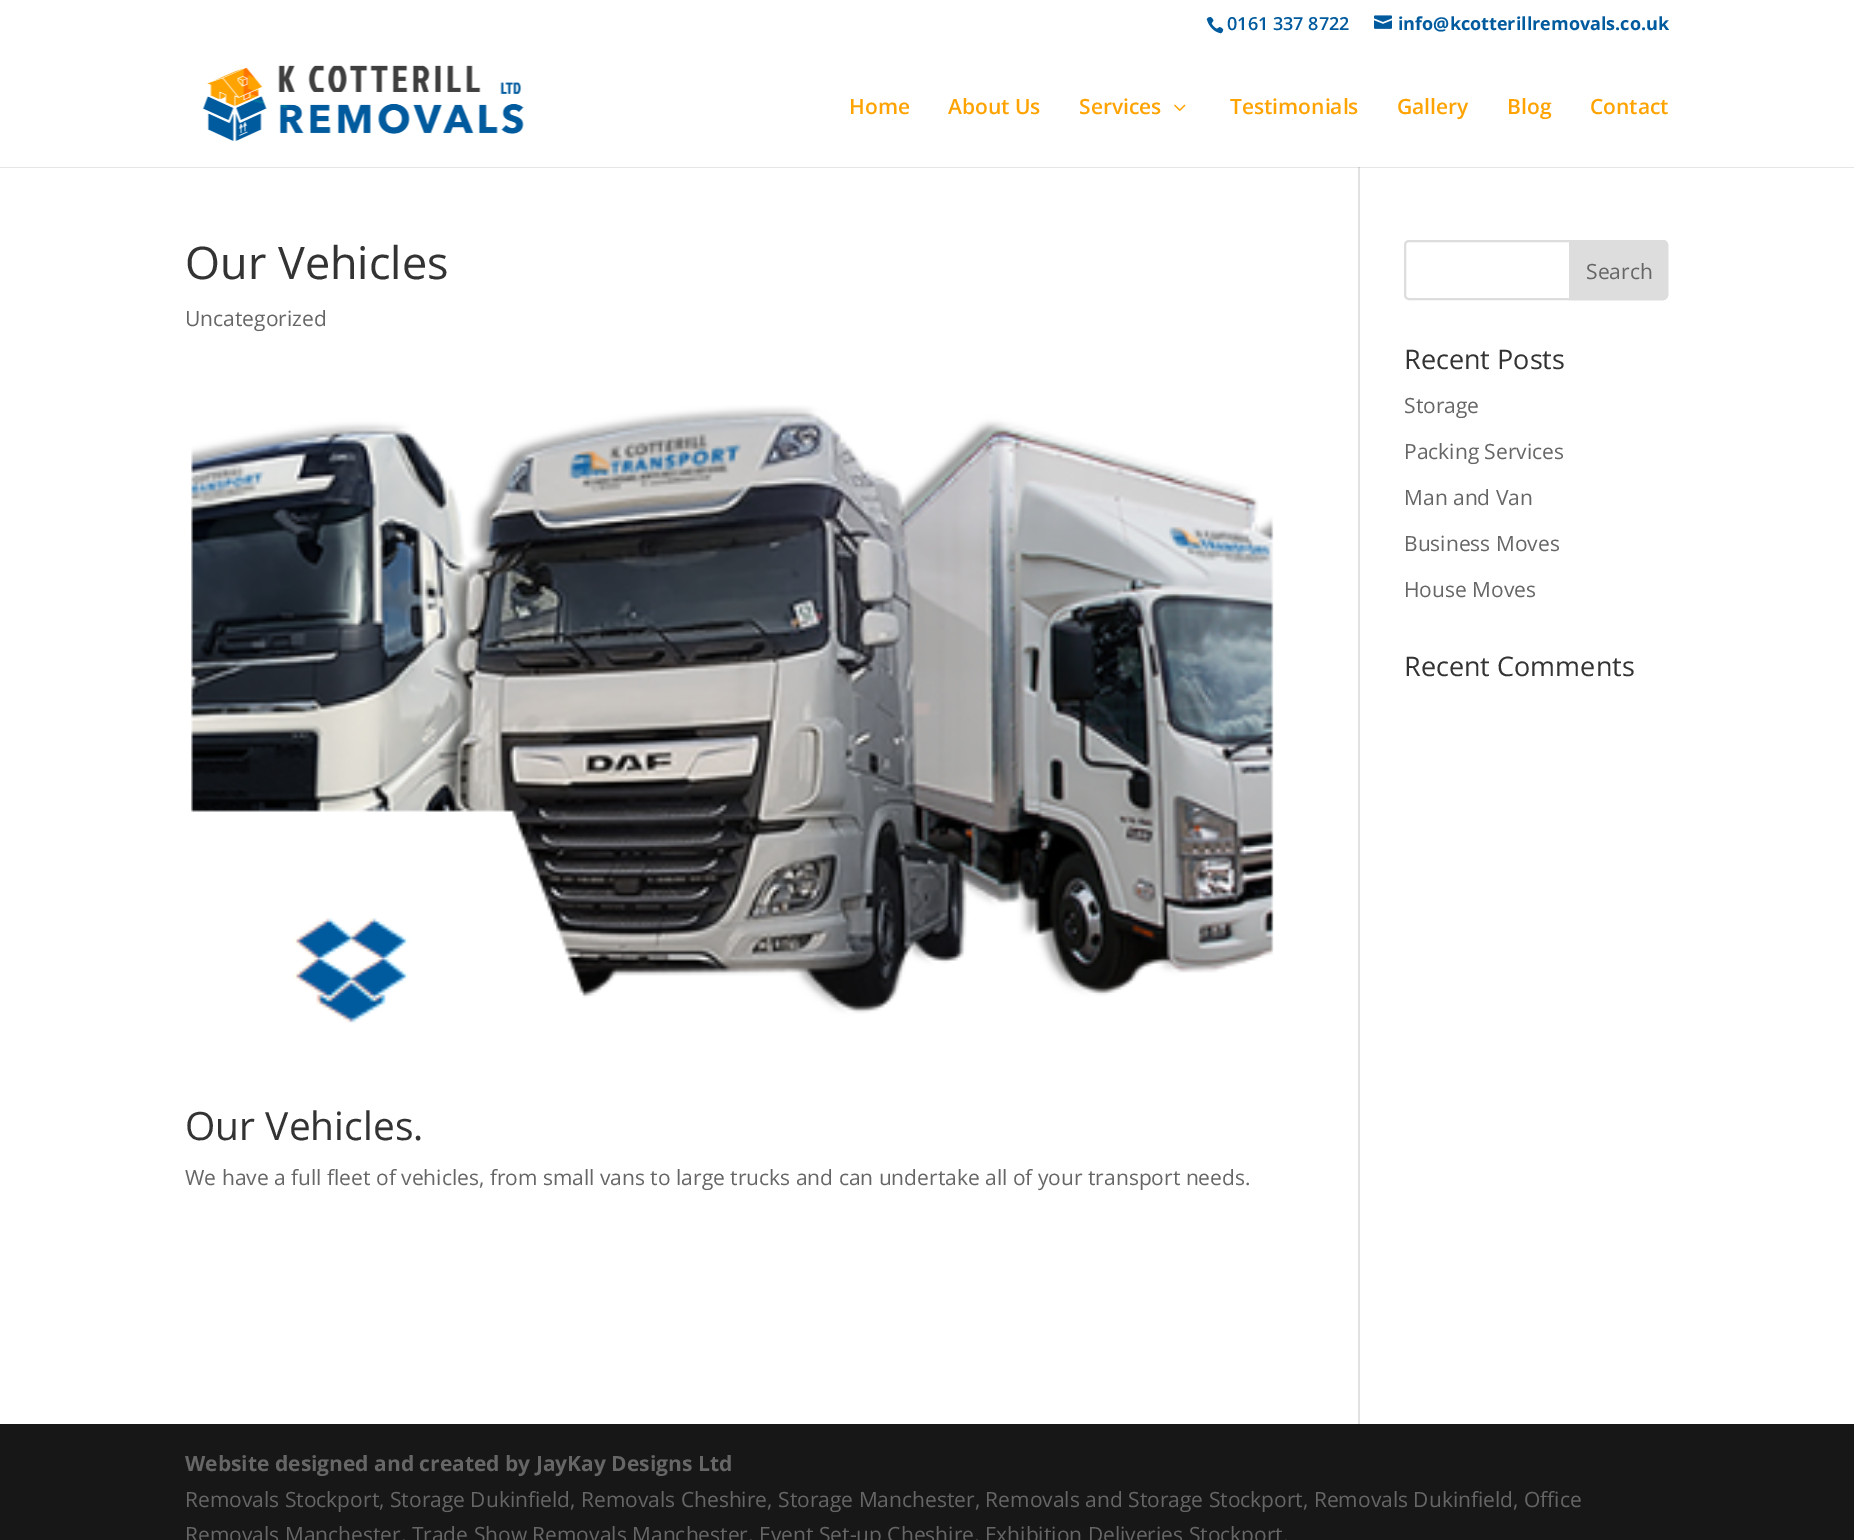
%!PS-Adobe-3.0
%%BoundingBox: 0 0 1854 1540
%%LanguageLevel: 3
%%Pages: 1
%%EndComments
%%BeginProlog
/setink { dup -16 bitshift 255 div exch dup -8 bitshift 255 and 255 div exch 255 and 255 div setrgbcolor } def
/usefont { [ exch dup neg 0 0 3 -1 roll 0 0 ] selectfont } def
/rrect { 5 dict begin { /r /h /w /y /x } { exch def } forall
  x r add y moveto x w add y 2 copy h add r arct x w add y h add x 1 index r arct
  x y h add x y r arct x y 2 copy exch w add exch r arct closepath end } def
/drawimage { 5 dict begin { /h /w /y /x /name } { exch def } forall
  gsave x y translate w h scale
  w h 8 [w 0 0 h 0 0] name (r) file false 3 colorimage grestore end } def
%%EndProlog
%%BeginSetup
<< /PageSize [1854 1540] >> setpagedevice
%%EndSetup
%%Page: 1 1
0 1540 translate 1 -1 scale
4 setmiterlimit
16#FFFFFF setink
0 0 1854 1540 rectfill
16#E6E6E6 setink
0 167 1854 1 rectfill
(img1.raw) 1206 16 18 18 drawimage
/OpenSans-SemiBold 18 usefont
16#005A9E setink
1227 30 moveto (0161 337 8722) show
(img2.raw) 1374 15 18 14 drawimage
/OpenSans-Bold 18 usefont
1398 30 moveto (info@kcotterillremovals.co.uk) show
(img3.raw) 202 65 322 76 drawimage
/OpenSans-SemiBold 21 usefont
16#FFA300 setink
[
    [(Home) 849 114]
    [(About Us) 948 114]
    [(Services) 1079 114]
] { aload pop moveto show } forall
(img4.raw) 1174 104 12 7 drawimage
[
    [(Testimonials) 1230 114]
    [(Gallery) 1397 114]
    [(Blog) 1507 114]
    [(Contact) 1590 114]
] { aload pop moveto show } forall
16#E2E2E2 setink
1358 168 2 1256 rectfill
16#CBCBCB setink
1358 167 2 1 rectfill
/OpenSans-Regular 45 usefont
16#333333 setink
185 279 moveto (Our Vehicles) show
/OpenSans-Regular 21 usefont
16#666666 setink
185 326 moveto (Uncategorized) show
(img5.raw) 191 405 1083 618 drawimage
/OpenSans-Regular 39 usefont
16#333333 setink
185 1140 moveto (Our Vehicles.) show
/OpenSans-Regular 21 usefont
16#666666 setink
185 1185 moveto (We have a full fleet of vehicles, from small vans to large trucks and can undertake all of your transport needs.) show
16#DDDDDD setink
2 setlinewidth
1405 241 262 58 4 rrect stroke
1570 241 moveto 1663 241 lineto 1665 241 1667 243 1667 245 curveto 1667 295 lineto 1667 297 1665 299 1663 299 curveto 1570 299 lineto closepath gsave fill grestore
stroke
16#666666 setink
1586 279 moveto (Search) show
/OpenSans-Regular 27 usefont
16#333333 setink
1404 369 moveto (Recent Posts) show
/OpenSans-Regular 21 usefont
16#666666 setink
[
    [(Storage) 1404 413]
    [(Packing Services) 1404 459]
    [(Man and Van) 1404 505]
    [(Business Moves) 1404 551]
    [(House Moves) 1404 597]
] { aload pop moveto show } forall
/OpenSans-Regular 27 usefont
16#333333 setink
1404 676 moveto (Recent Comments) show
16#171717 setink
0 1424 1854 116 rectfill
/OpenSans-Bold 21 usefont
16#666666 setink
185 1471 moveto (Website designed and created by JayKay Designs Ltd) show
/OpenSans-Regular 21 usefont
185 1507 moveto (Removals Stockport, Storage Dukinfield, Removals Cheshire, Storage Manchester, Removals and Storage Stockport, Removals Dukinfield, Office) show
185 1542 moveto (Removals Manchester, Trade Show Removals Manchester, Event Set-up Cheshire, Exhibition Deliveries Stockport.) show
showpage
%%EOF
